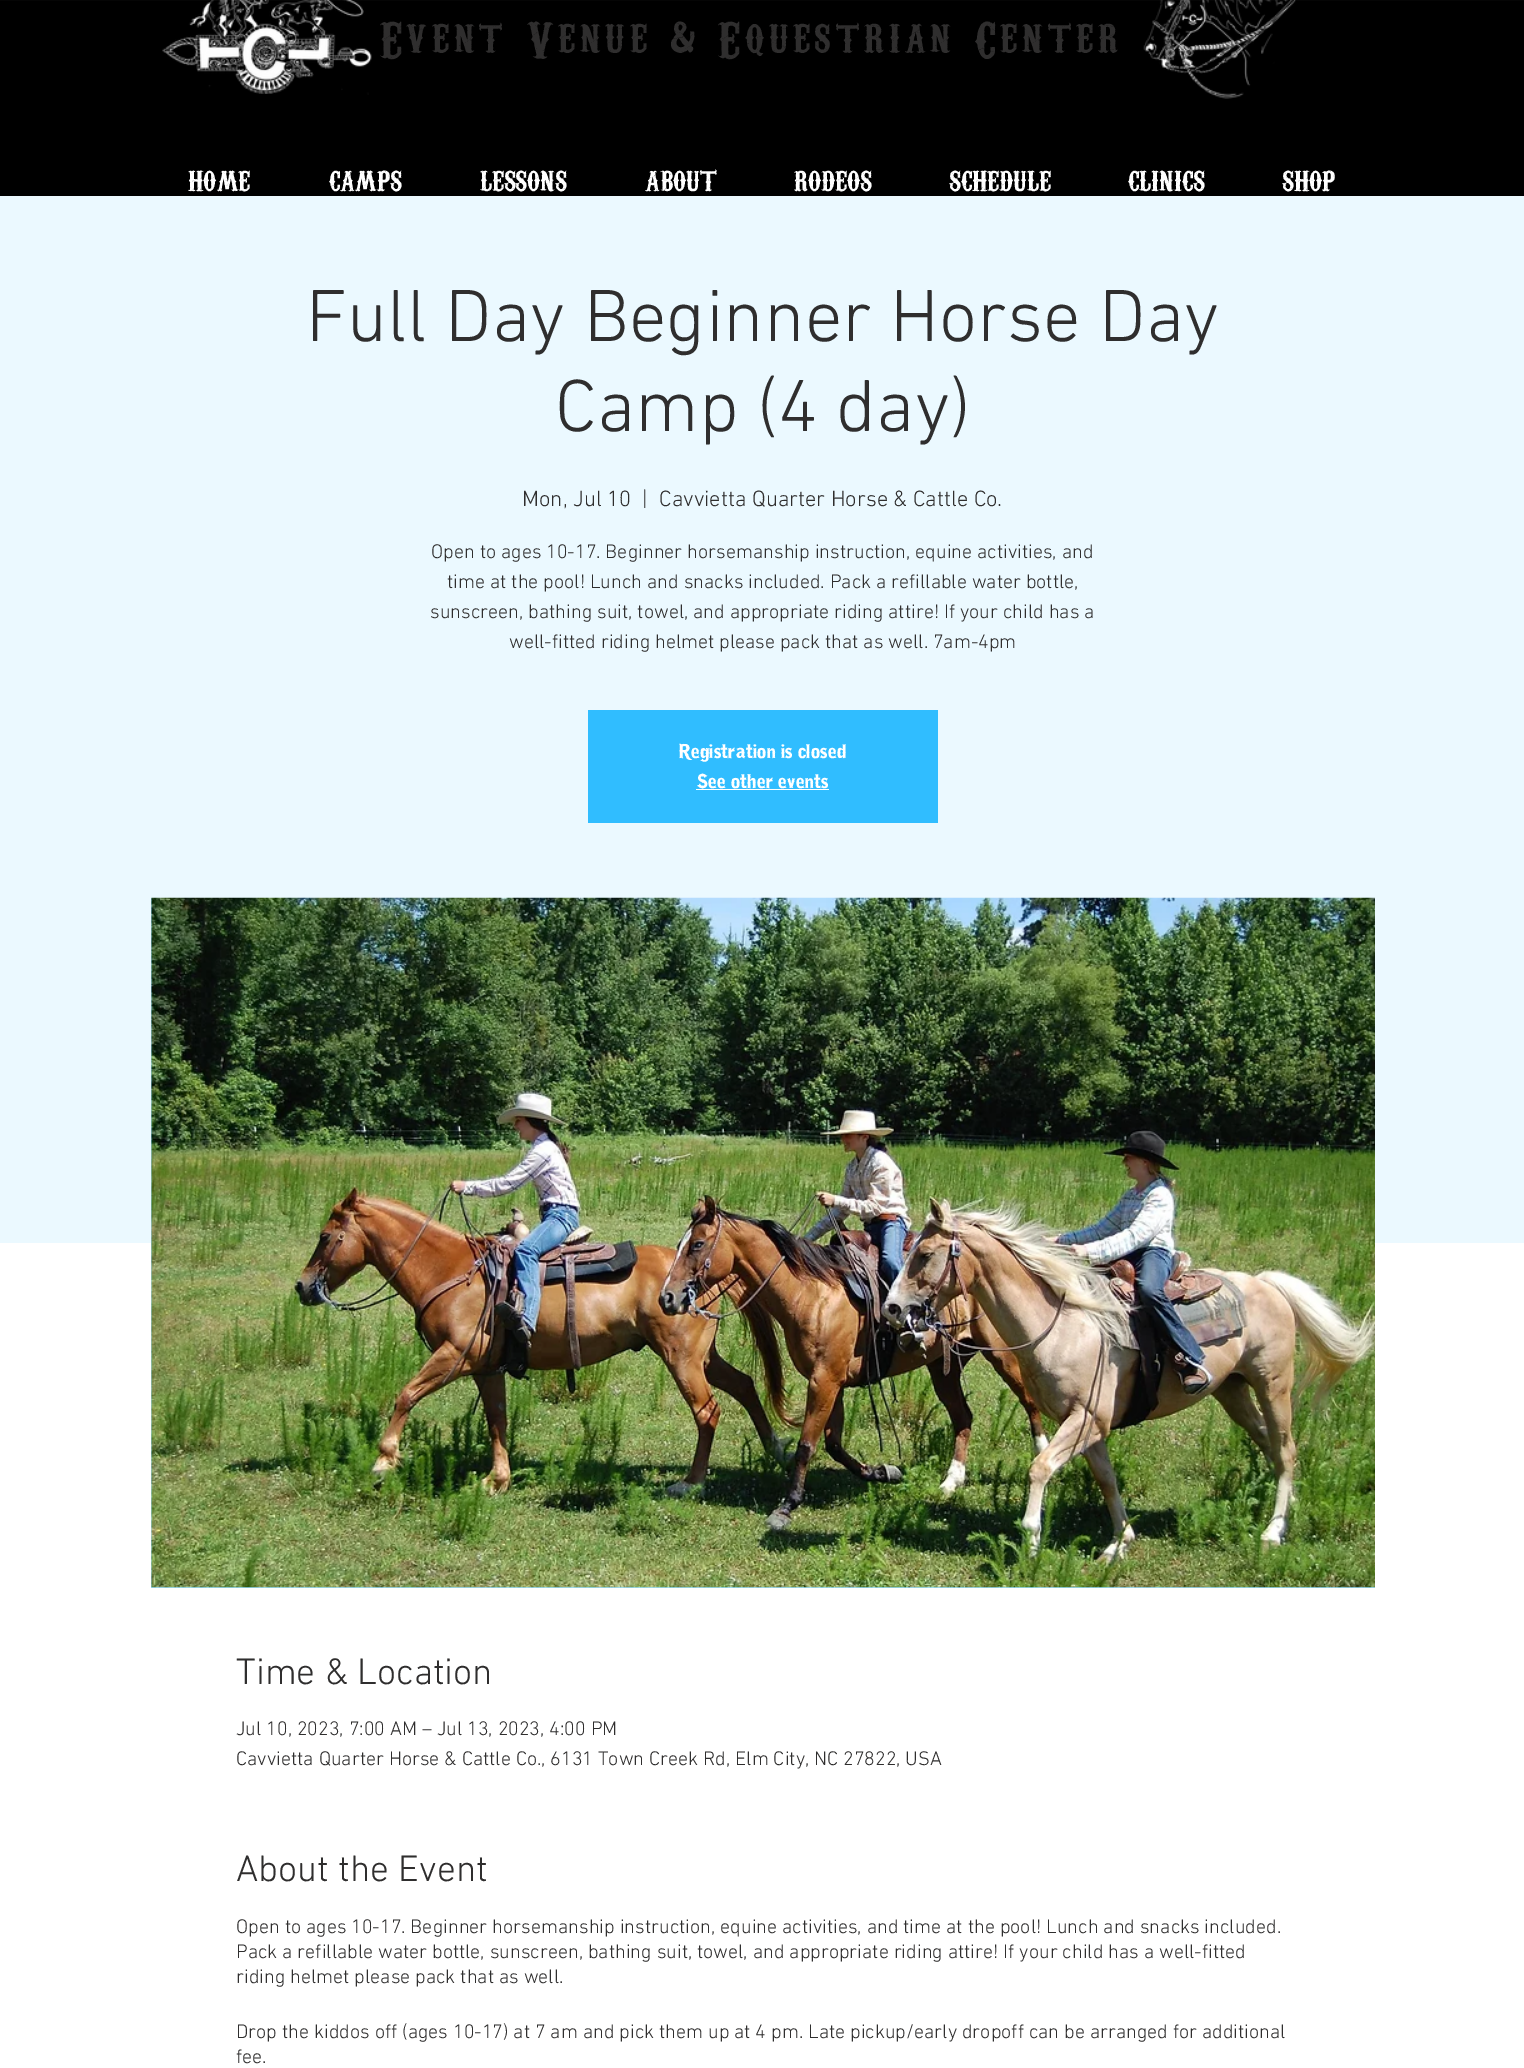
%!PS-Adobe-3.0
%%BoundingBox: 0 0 1524 2068
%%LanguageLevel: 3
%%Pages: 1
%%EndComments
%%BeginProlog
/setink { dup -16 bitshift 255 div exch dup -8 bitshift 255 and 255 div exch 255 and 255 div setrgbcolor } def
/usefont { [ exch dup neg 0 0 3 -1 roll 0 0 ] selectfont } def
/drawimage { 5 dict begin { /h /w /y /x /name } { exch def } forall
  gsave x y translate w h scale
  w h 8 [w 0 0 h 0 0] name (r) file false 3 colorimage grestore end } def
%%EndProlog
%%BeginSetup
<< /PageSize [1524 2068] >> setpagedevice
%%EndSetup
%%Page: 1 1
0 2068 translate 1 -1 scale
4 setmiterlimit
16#FFFFFF setink
0 0 1524 2068 rectfill
16#000000 setink
0 1 1524 195 rectfill
16#050505 setink
0 0 1524 1 rectfill
(img1.raw) 162 0 210 95 drawimage
/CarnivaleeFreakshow-Regular 50 usefont
16#2F2E2E setink
380 53 moveto 5 0 (Event Venue & Equestrian Center) ashow
(img2.raw) 1143 0 153 99 drawimage
/CarnivaleeFreakshow-Regular 27.5 usefont
16#FFFFFF setink
[
    [(HOME) 188 188]
    [(CAMPS) 329 188]
    [(LESSONS) 480 188]
    [(ABOUT) 645 188]
    [(RODEOS) 794 188]
    [(SCHEDULE) 949 188]
    [(CLINICS) 1128 188]
    [(SHOP) 1282 188]
] { aload pop moveto show } forall
16#EBF9FF setink
0 196 1524 1047 rectfill
/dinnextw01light-Light 75 usefont
16#2F2E2E setink
306 341 moveto (Full Day Beginner Horse Day) show
555 431 moveto (Camp \(4 day\)) show
/dinnextw01light-Light 22.5 usefont
[
    [(Mon, Jul 10) 522 506]
    [(|) 642 506]
    [(Cavvietta Quarter Horse & Cattle Co.) 659 506]
] { aload pop moveto show } forall
/dinnextw01light-Light 20 usefont
[
    [(Open to ages 10-17. Beginner horsemanship instruction, equine activities, and) 431 558]
    [(time at the pool! Lunch and snacks included. Pack a refillable water bottle,) 447 588]
    [(sunscreen, bathing suit, towel, and appropriate riding attire! If your child has a) 430 618]
    [(well-fitted riding helmet please pack that as well. 7am-4pm) 509 648]
] { aload pop moveto show } forall
16#30BDFF setink
588 710 350 113 rectfill
/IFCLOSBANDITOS-Bold 20 usefont
16#FFFFFF setink
679 758 moveto (Registration is closed) show
697 788 moveto (See other events) show
696 789 133 1 rectfill
16#97DEFF setink
151 898 1224 690 rectfill
(img3.raw) 151 897 1224 691 drawimage
/dinnextw01light-Light 37.5 usefont
16#2F2E2E setink
236 1684 moveto (Time & Location) show
/dinnextw01light-Light 20 usefont
236 1735 moveto (Jul 10, 2023, 7:00 AM – Jul 13, 2023, 4:00 PM) show
236 1765 moveto (Cavvietta Quarter Horse & Cattle Co., 6131 Town Creek Rd, Elm City, NC 27822, USA) show
/dinnextw01light-Light 37.5 usefont
236 1881 moveto (About the Event) show
/dinnextw01light-Light 20 usefont
[
    [(Open to ages 10-17. Beginner horsemanship instruction, equine activities, and time at the pool! Lunch and snacks included.) 236 1933]
    [(Pack a refillable water bottle, sunscreen, bathing suit, towel, and appropriate riding attire! If your child has a well-fitted) 236 1958]
    [(riding helmet please pack that as well.) 236 1983]
    [(Drop the kiddos off \(ages 10-17\) at 7 am and pick them up at 4 pm. Late pickup/early dropoff can be arranged for additional) 236 2038]
    [(fee.) 236 2063]
] { aload pop moveto show } forall
showpage
%%EOF
